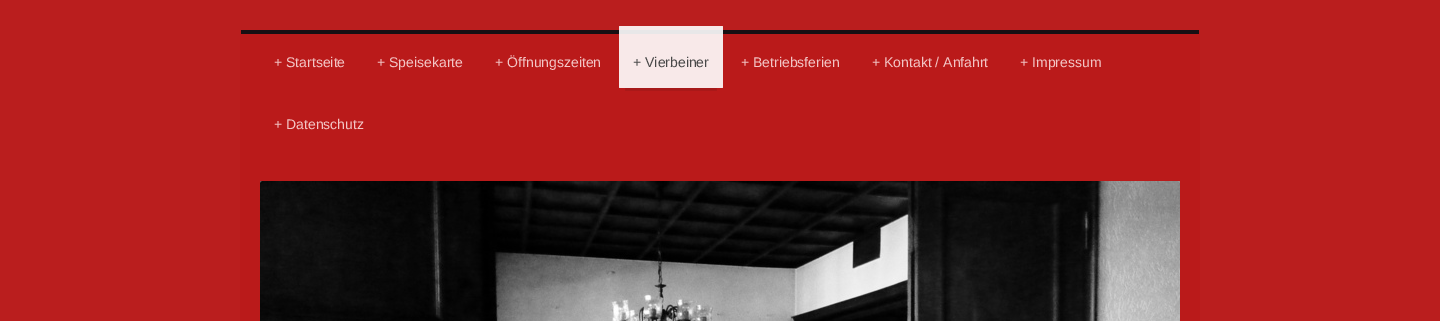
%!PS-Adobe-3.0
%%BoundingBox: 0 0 1440 321
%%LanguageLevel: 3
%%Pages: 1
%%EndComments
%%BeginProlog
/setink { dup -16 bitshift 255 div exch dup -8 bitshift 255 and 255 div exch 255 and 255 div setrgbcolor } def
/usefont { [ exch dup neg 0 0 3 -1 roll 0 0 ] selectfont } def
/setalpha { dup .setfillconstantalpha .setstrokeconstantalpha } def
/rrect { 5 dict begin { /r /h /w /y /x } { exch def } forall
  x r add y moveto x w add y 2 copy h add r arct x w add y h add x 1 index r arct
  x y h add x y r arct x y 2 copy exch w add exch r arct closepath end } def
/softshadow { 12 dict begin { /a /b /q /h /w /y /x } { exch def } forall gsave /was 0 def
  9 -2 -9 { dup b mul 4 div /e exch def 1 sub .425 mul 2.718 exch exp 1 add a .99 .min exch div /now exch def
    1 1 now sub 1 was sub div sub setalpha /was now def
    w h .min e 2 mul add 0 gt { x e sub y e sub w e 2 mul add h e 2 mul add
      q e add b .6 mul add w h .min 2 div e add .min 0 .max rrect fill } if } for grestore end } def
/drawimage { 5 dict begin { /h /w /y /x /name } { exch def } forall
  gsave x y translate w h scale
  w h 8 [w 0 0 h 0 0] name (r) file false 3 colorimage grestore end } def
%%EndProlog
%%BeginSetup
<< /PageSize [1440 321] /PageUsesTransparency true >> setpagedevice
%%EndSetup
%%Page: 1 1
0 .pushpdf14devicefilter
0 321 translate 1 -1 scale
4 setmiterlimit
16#BA1E1E setink
0 0 1440 321 rectfill
16#BA1A1A setink
242 30 moveto 1198 30 lineto 1199 30 1200 31 1200 32 curveto 1200 321 lineto 1200 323 1198 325 1196 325 curveto 244 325 lineto 242 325 240 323 240 321 curveto 240 32 lineto 240 31 241 30 242 30 curveto closepath fill
16#180F13 setink
241 30 958 4 rectfill
/LiberationSans-Regular 14 usefont
16#F3C6C6 setink
[
    [(+ Startseite) 274 67]
    [(+ Speisekarte) 377 67]
    [(+ Öffnungszeiten) 495 67]
] { aload pop moveto show } forall
gsave
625 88 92 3 rectclip
16#000000 setink
625 41 92 50 0 0.5 0.1 softshadow
grestore
0.9 setalpha
16#FFFFFF setink
619 26 104 62 1 rrect fill
1 setalpha
16#474747 setink
633 67 moveto (+ Vierbeiner) show
16#F3C6C6 setink
[
    [(+ Betriebsferien) 741 67]
    [(+ Kontakt / Anfahrt) 872 67]
    [(+ Impressum) 1020 67]
    [(+ Datenschutz) 274 129]
] { aload pop moveto show } forall
(img1.raw) 260 181 920 2 drawimage
(img2.raw) 260 181 920 140 drawimage
.poppdf14devicefilter showpage
%%EOF
